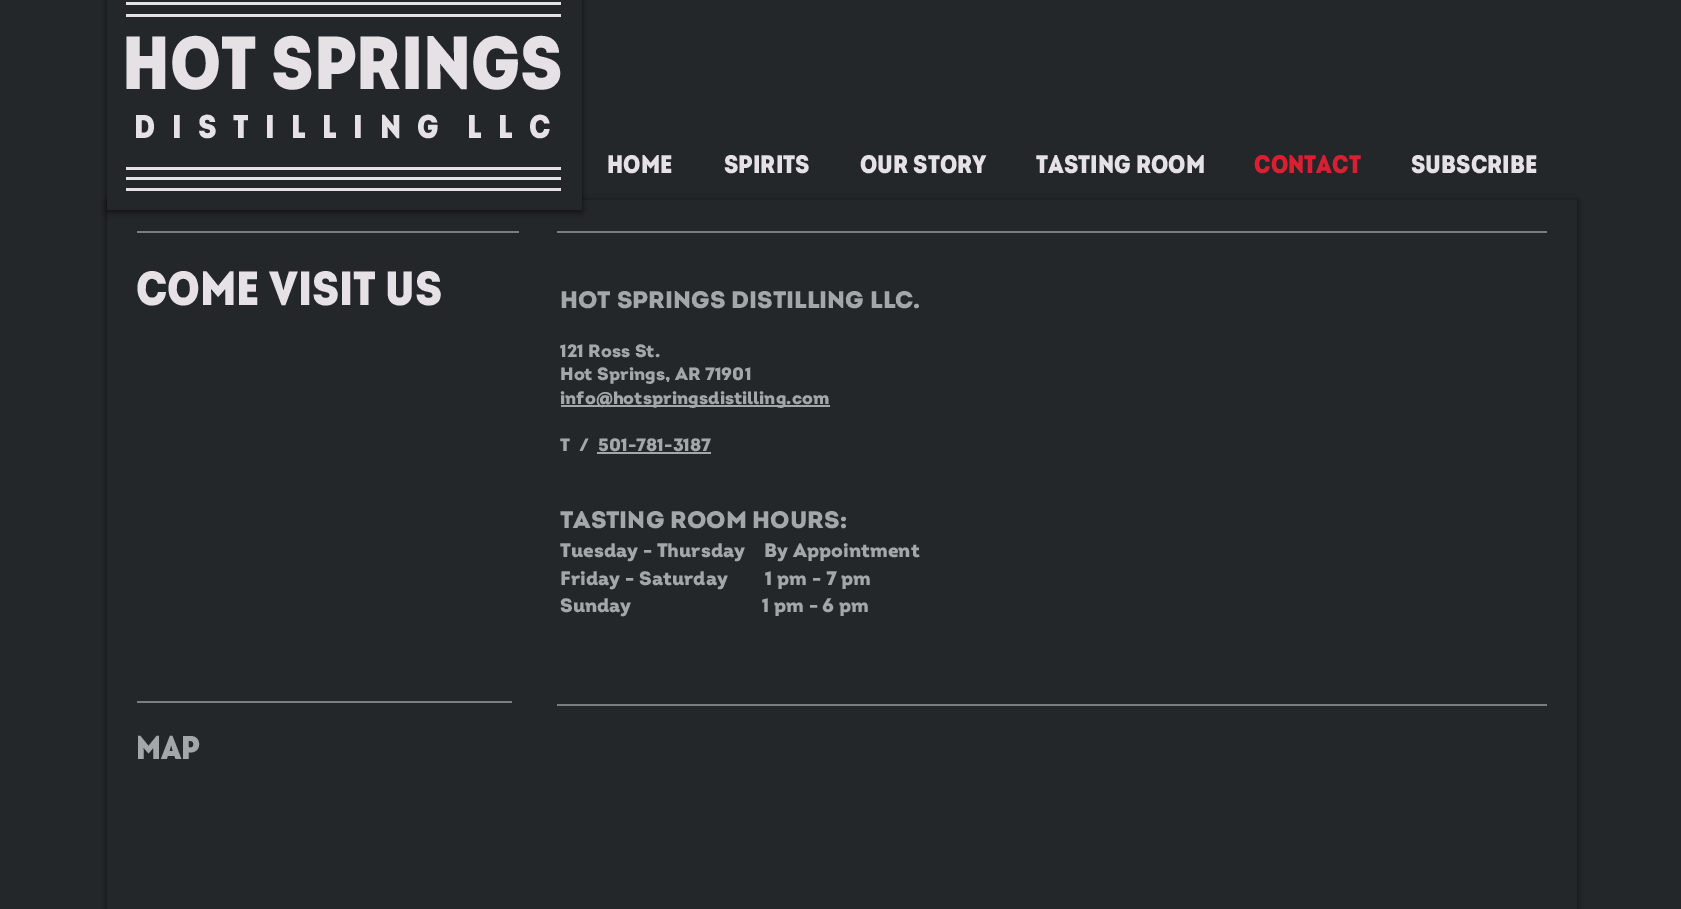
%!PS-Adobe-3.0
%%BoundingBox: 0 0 1681 909
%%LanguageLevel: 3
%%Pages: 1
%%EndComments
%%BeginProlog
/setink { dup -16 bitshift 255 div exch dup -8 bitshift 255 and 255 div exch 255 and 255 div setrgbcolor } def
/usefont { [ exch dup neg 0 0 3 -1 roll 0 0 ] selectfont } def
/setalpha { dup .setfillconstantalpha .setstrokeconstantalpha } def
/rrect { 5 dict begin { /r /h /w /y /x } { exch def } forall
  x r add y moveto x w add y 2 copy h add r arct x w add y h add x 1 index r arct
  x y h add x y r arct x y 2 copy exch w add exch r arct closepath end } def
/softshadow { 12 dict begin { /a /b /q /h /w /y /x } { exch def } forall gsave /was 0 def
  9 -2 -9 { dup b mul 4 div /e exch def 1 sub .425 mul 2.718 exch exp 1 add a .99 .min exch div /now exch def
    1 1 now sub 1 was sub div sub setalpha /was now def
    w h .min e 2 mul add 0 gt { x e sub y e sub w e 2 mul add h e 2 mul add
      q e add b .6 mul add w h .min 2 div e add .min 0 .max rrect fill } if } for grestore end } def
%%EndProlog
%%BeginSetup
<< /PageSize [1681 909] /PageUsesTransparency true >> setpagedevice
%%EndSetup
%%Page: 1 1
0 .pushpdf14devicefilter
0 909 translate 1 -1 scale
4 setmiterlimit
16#242729 setink
0 0 1681 909 rectfill
16#000000 setink
107 201 1470 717 0 3 0.6 softshadow
16#242729 setink
107 200 1470 709 rectfill
16#000000 setink
107 -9 475 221 0 3 0.6 softshadow
[
    [107 0 475 210 16#242729]
    [126 2 435 3 16#E5E1E5]
    [126 14 435 3 16#E5E1E5]
] { aload pop setink rectfill } forall
/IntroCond-Black 75 usefont
122 89 moveto (HOT SPRINGS) show
/IntroCond-Black 33 usefont
134 138 moveto 16.5 0 (DISTILLING) ashow
467 138 moveto 16.5 0 (LLC) ashow
[
    [126 167 435 3 16#E5E1E5]
    [126 177 435 3 16#E5E1E5]
    [126 188 435 3 16#E5E1E5]
] { aload pop setink rectfill } forall
/IntroCond-Black 25.5 usefont
[
    [(HOME) 607 173]
    [(SPIRITS) 724 173]
    [(OUR STORY) 860 173]
    [(TASTING ROOM) 1036 173]
] { aload pop moveto show } forall
16#DA1F32 setink
1254 173 moveto (CONTACT) show
16#E5E1E5 setink
1411 173 moveto (SUBSCRIBE) show
16#797D7F setink
137 231 382 2 rectfill
557 231 990 2 rectfill
/IntroCond-Black 48 usefont
16#E5E1E5 setink
136 305 moveto (COME VISIT US) show
/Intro-Black 24 usefont
16#A4A7A9 setink
560 308 moveto (HOT SPRINGS DISTILLING LLC.) show
/Intro-Black 18 usefont
560 357 moveto (121 Ross St.) show
560 380 moveto (Hot Springs, AR 71901) show
561 405 269 2 rectfill
[
    [(info@hotspringsdistilling.com) 560 404]
    [(T  /) 560 451]
    [(501-781-3187) 598 451]
] { aload pop moveto show } forall
597 452 114 2 rectfill
/Intro-Black 24 usefont
560 528 moveto (TASTING ROOM HOURS:) show
/Intro-Black 19.5 usefont
[
    [(Tuesday - Thursday    By Appointment) 560 557]
    [(Friday - Saturday        1 pm - 7 pm) 560 585]
    [(Sunday                            1 pm - 6 pm) 560 612]
] { aload pop moveto show } forall
16#797D7F setink
137 701 375 2 rectfill
557 704 990 2 rectfill
/IntroCond-Black 33 usefont
16#A4A7A9 setink
136 759 moveto (MAP) show
.poppdf14devicefilter showpage
%%EOF
